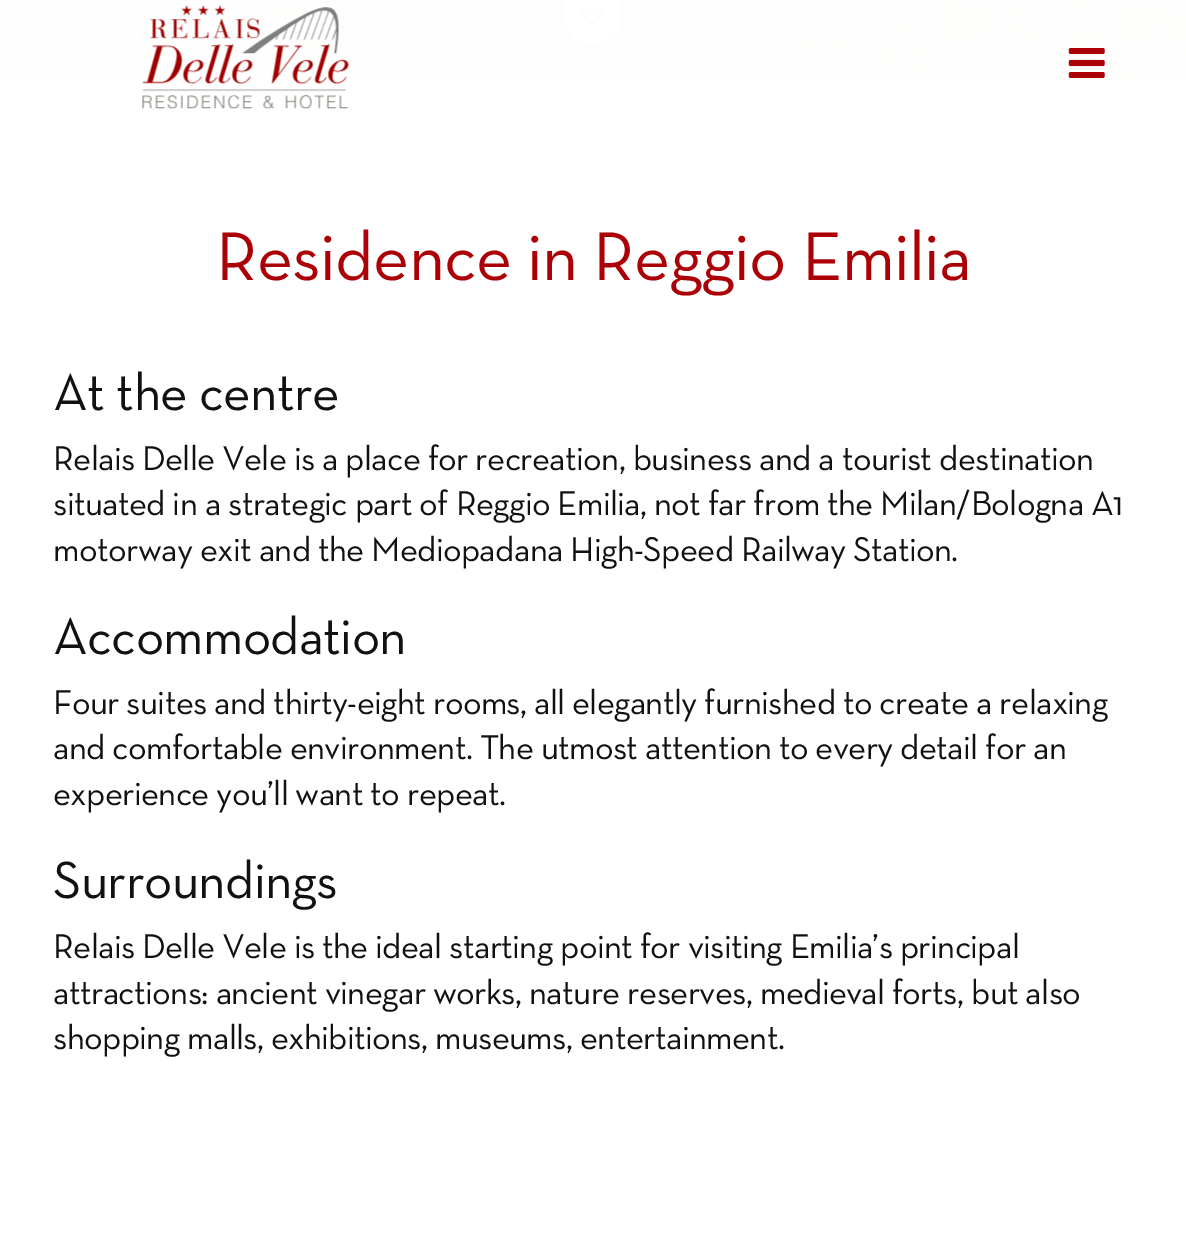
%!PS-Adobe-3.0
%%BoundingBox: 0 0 1186 1241
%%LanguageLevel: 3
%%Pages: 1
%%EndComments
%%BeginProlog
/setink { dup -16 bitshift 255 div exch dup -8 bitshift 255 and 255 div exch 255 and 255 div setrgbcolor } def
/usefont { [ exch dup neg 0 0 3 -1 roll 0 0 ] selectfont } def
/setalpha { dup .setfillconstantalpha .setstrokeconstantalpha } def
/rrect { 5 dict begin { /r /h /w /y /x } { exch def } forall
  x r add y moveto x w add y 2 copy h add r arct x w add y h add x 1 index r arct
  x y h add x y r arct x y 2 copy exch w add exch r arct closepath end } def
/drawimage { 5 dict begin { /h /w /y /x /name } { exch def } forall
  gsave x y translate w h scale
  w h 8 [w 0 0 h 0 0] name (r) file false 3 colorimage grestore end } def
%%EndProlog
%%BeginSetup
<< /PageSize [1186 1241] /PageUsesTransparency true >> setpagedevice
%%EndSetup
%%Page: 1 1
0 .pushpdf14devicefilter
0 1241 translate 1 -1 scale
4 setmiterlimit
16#FFFFFF setink
0 0 1186 1241 rectfill
16#BDBDBD setink
0 0 1186 81 rectfill
(img3.raw) 0 0 1186 81 drawimage
0.9 setalpha
16#FFFFFF setink
564 -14 57 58 28.5 rrect fill
gsave
581 11 23 15 rectclip
1 setalpha
16#272727 setink
604 13.5 moveto 593 26.5 lineto 592 25.5 lineto 591.5 25.5 lineto 581 14 lineto 583.5 11 lineto 592.5 21 lineto 601 10.5 lineto closepath eofill
grestore
0.99 setalpha
0 0 1186 81 rectfill
1 setalpha
(img1.raw) 142 5 207 104 drawimage
(img2.raw) 1068 48 37 30 drawimage
/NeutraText-Regular 70 usefont
16#AC0007 setink
216 280 moveto -0.7 0 (Residence in Reggio Emilia) ashow
/NeutraText-Regular 53.25 usefont
16#111111 setink
53 410 moveto -0.7 0 (At the centre) ashow
/NeutraText-Regular 35 usefont
53 470 moveto -0.7 0 (Relais Delle Vele is a place for recreation, business and a tourist destination) ashow
53 515 moveto -0.7 0 (situated in a strategic part of Reggio Emilia, not far from the Milan/Bologna A1) ashow
53 561 moveto -0.7 0 (motorway exit and the Mediopadana High-Speed Railway Station.) ashow
/NeutraText-Regular 53.25 usefont
53 654 moveto -0.7 0 (Accommodation) ashow
/NeutraText-Regular 35 usefont
53 714 moveto -0.7 0 (Four suites and thirty-eight rooms, all elegantly furnished to create a relaxing) ashow
53 759 moveto -0.7 0 (and comfortable environment. The utmost attention to every detail for an) ashow
53 805 moveto -0.7 0 (experience you’ll want to repeat.) ashow
/NeutraText-Regular 53.25 usefont
53 898 moveto -0.7 0 (Surroundings) ashow
/NeutraText-Regular 35 usefont
53 958 moveto -0.7 0 (Relais Delle Vele is the ideal starting point for visiting Emilia’s principal) ashow
53 1004 moveto -0.7 0 (attractions: ancient vinegar works, nature reserves, medieval forts, but also) ashow
53 1049 moveto -0.7 0 (shopping malls, exhibitions, museums, entertainment.) ashow
.poppdf14devicefilter showpage
%%EOF
